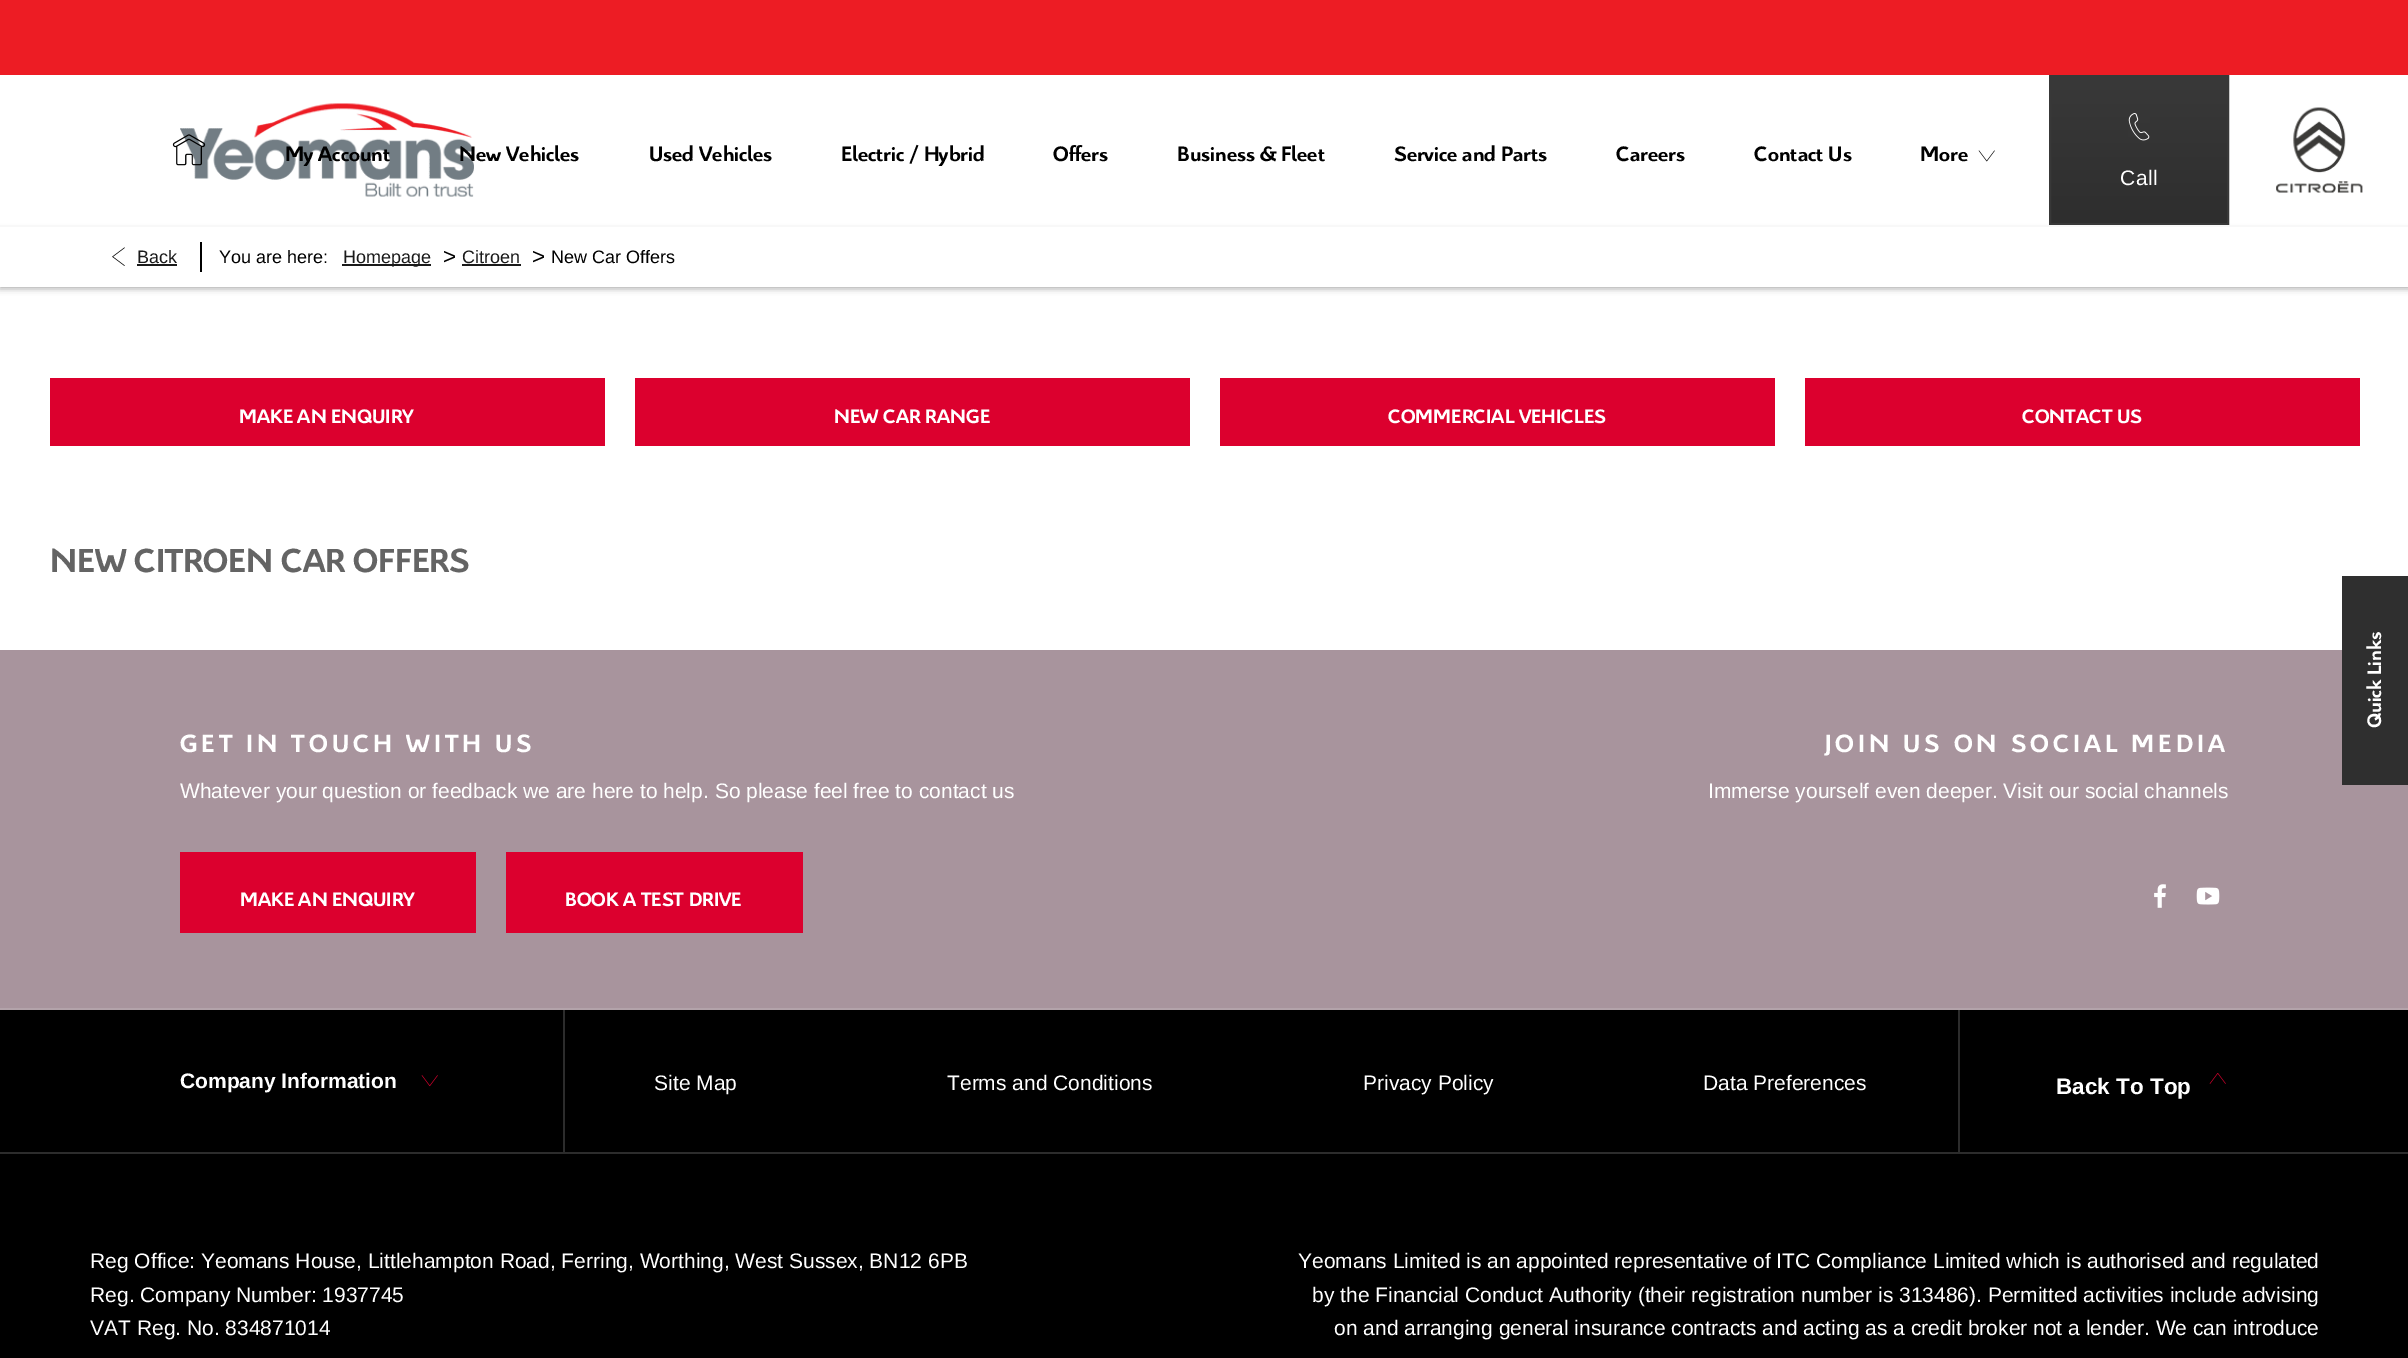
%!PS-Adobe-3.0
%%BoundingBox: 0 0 2408 1358
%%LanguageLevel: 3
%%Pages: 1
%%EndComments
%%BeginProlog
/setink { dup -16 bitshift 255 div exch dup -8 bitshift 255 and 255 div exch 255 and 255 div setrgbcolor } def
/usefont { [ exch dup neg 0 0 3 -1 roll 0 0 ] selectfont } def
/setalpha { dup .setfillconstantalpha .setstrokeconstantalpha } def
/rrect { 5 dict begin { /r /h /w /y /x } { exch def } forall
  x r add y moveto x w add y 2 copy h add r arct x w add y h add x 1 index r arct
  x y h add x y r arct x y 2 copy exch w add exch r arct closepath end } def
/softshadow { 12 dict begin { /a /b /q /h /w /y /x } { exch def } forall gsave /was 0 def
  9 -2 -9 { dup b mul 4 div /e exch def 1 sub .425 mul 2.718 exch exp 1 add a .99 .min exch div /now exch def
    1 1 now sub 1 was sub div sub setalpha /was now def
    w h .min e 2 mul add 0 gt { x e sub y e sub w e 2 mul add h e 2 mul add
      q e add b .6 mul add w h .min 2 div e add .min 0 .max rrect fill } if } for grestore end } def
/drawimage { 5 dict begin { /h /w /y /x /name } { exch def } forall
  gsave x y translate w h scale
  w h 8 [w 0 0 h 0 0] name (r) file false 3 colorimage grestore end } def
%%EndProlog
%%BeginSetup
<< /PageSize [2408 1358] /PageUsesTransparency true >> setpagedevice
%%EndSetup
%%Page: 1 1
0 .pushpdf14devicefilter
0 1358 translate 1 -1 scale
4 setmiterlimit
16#FFFFFF setink
0 0 2408 1358 rectfill
16#000000 setink
0 0 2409 287 0 4 0.3 softshadow
16#FFFFFF setink
0 75 2408 212 rectfill
16#ED1C24 setink
0 0 2408 75 rectfill
(img3.raw) 180 103 294 94 drawimage
(img1.raw) 172 134 34 32 drawimage
/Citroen-Bold 22.5 usefont
16#000000 setink
[
    [(My Account) 285 161]
    [(New Vehicles) 459 161]
    [(Used Vehicles) 649 161]
    [(Electric / Hybrid) 841 161]
    [(Offers) 1053 161]
    [(Business & Fleet) 1177 161]
    [(Service and Parts) 1394 161]
    [(Careers) 1616 161]
    [(Contact Us) 1754 161]
    [(More) 1920 161]
] { aload pop moveto show } forall
(img2.raw) 1978 150 17 12 drawimage
gsave
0 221 moveto 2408 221 lineto 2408 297 lineto 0 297 lineto closepath 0 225 moveto 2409 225 lineto 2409 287 lineto 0 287 lineto closepath eoclip newpath
0 228 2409 62 0 2 0.1 softshadow
grestore
gsave 2051 77 moveto 2227 77 lineto 2227 223 lineto 2051 223 lineto closepath clip newpath
<< /ShadingType 2 /ColorSpace /DeviceRGB /Coords [2139 76 2139 224] /Extend [true true] /Function << /FunctionType 2 /Domain [0 1] /C0 [0.224 0.224 0.224] /C1 [0.18 0.18 0.18] /N 1 >> >> shfill grestore
16#383838 setink
2 setlinewidth
2050 76 178 148 rectstroke
(img4.raw) 2128 113 22 28 drawimage
/LiberationSans-Regular 21 usefont
16#FFFFFF setink
2120 185 moveto 0.5 0 (Call) ashow
(img5.raw) 2276 107 87 86 drawimage
16#F8F8F8 setink
0 225 2408 2 rectfill
(img6.raw) 112 247 13 19 drawimage
/LiberationSans-Regular 18 usefont
16#1A1A1A setink
137 263 moveto (Back) show
137 264 40 2 rectfill
16#000000 setink
200 242 2 30 rectfill
219 263 moveto (You are here:) show
16#1A1A1A setink
342 264 89 2 rectfill
343 263 moveto (Homepage) show
/LiberationSans-Regular 22.5 usefont
16#000000 setink
443 264 moveto (>) show
/LiberationSans-Regular 18 usefont
16#1A1A1A setink
462 263 moveto (Citroen) show
462 264 59 2 rectfill
/LiberationSans-Regular 22.5 usefont
16#000000 setink
532 264 moveto (>) show
/LiberationSans-Regular 18 usefont
551 263 moveto (New Car Offers) show
16#A8949D setink
0 650 2408 358 rectfill
16#2F2F2F setink
2342 576 66 209 rectfill
/Citroen-Bold 21 usefont
16#FFFFFF setink
gsave 2381 728 translate -90 rotate 0 0 moveto (Quick Links) show grestore
16#DC002E setink
50 378 555 68 rectfill
16#FFFFFF setink
239 423 moveto (MAKE AN ENQUIRY) show
16#DC002E setink
635 378 555 68 rectfill
16#FFFFFF setink
834 423 moveto (NEW CAR RANGE) show
16#DC002E setink
1220 378 555 68 rectfill
16#FFFFFF setink
1388 423 moveto (COMMERCIAL VEHICLES) show
16#DC002E setink
1805 378 555 68 rectfill
16#FFFFFF setink
2022 423 moveto (CONTACT US) show
/Citroen-Bold 36 usefont
16#646464 setink
50 572 moveto (NEW CITROEN CAR OFFERS) show
16#B3A3AA setink
0 1008 2408 2 rectfill
/Citroen-Bold 27 usefont
16#FFFFFF setink
180 752 moveto 4.05 0 (GET IN TOUCH WITH US) ashow
/LiberationSans-Regular 21 usefont
180 798 moveto (Whatever your question or feedback we are here to help. So please feel free to contact us) show
16#DC002E setink
180 852 296 81 rectfill
/Citroen-Bold 21 usefont
16#FFFFFF setink
240 906 moveto (MAKE AN ENQUIRY) show
16#DC002E setink
506 852 297 81 rectfill
16#FFFFFF setink
565 906 moveto (BOOK A TEST DRIVE) show
/Citroen-Bold 27 usefont
1824 752 moveto 4.05 0 (JOIN US ON SOCIAL MEDIA) ashow
/LiberationSans-Regular 21 usefont
1708 798 moveto (Immerse yourself even deeper. Visit our social channels) show
(img7.raw) 2154 884 12 24 drawimage
(img8.raw) 2196 887 24 18 drawimage
16#000000 setink
0 1010 2408 348 rectfill
16#2C2C2C setink
563 1010 2 142 rectfill
/LiberationSans-Bold 21 usefont
16#FFFFFF setink
180 1088 moveto (Company Information) show
(img9.raw) 421 1075 17 12 drawimage
/LiberationSans-Regular 21 usefont
[
    [(Site Map) 654 1090]
    [(Terms and Conditions) 947 1090]
    [(Privacy Policy) 1363 1090]
    [(Data Preferences) 1703 1090]
] { aload pop moveto show } forall
16#2C2C2C setink
1958 1010 2 142 rectfill
/LiberationSans-Bold 22.5 usefont
16#FFFFFF setink
2056 1094 moveto (Back To Top) show
(img10.raw) 2209 1073 17 11 drawimage
16#2C2C2C setink
0 1152 2408 2 rectfill
/LiberationSans-Regular 21 usefont
16#FFFFFF setink
[
    [(Reg Office: Yeomans House, Littlehampton Road, Ferring, Worthing, West Sussex, BN12 6PB) 90 1268]
    [(Reg. Company Number: 1937745) 90 1302]
    [(VAT Reg. No. 834871014) 90 1335]
    [(Yeomans Limited is an appointed representative of ITC Compliance Limited which is authorised and regulated) 1298 1268]
    [(by the Financial Conduct Authority \(their registration number is 313486\). Permitted activities include advising) 1312 1302]
    [(on and arranging general insurance contracts and acting as a credit broker not a lender. We can introduce) 1334 1335]
] { aload pop moveto show } forall
.poppdf14devicefilter showpage
%%EOF
